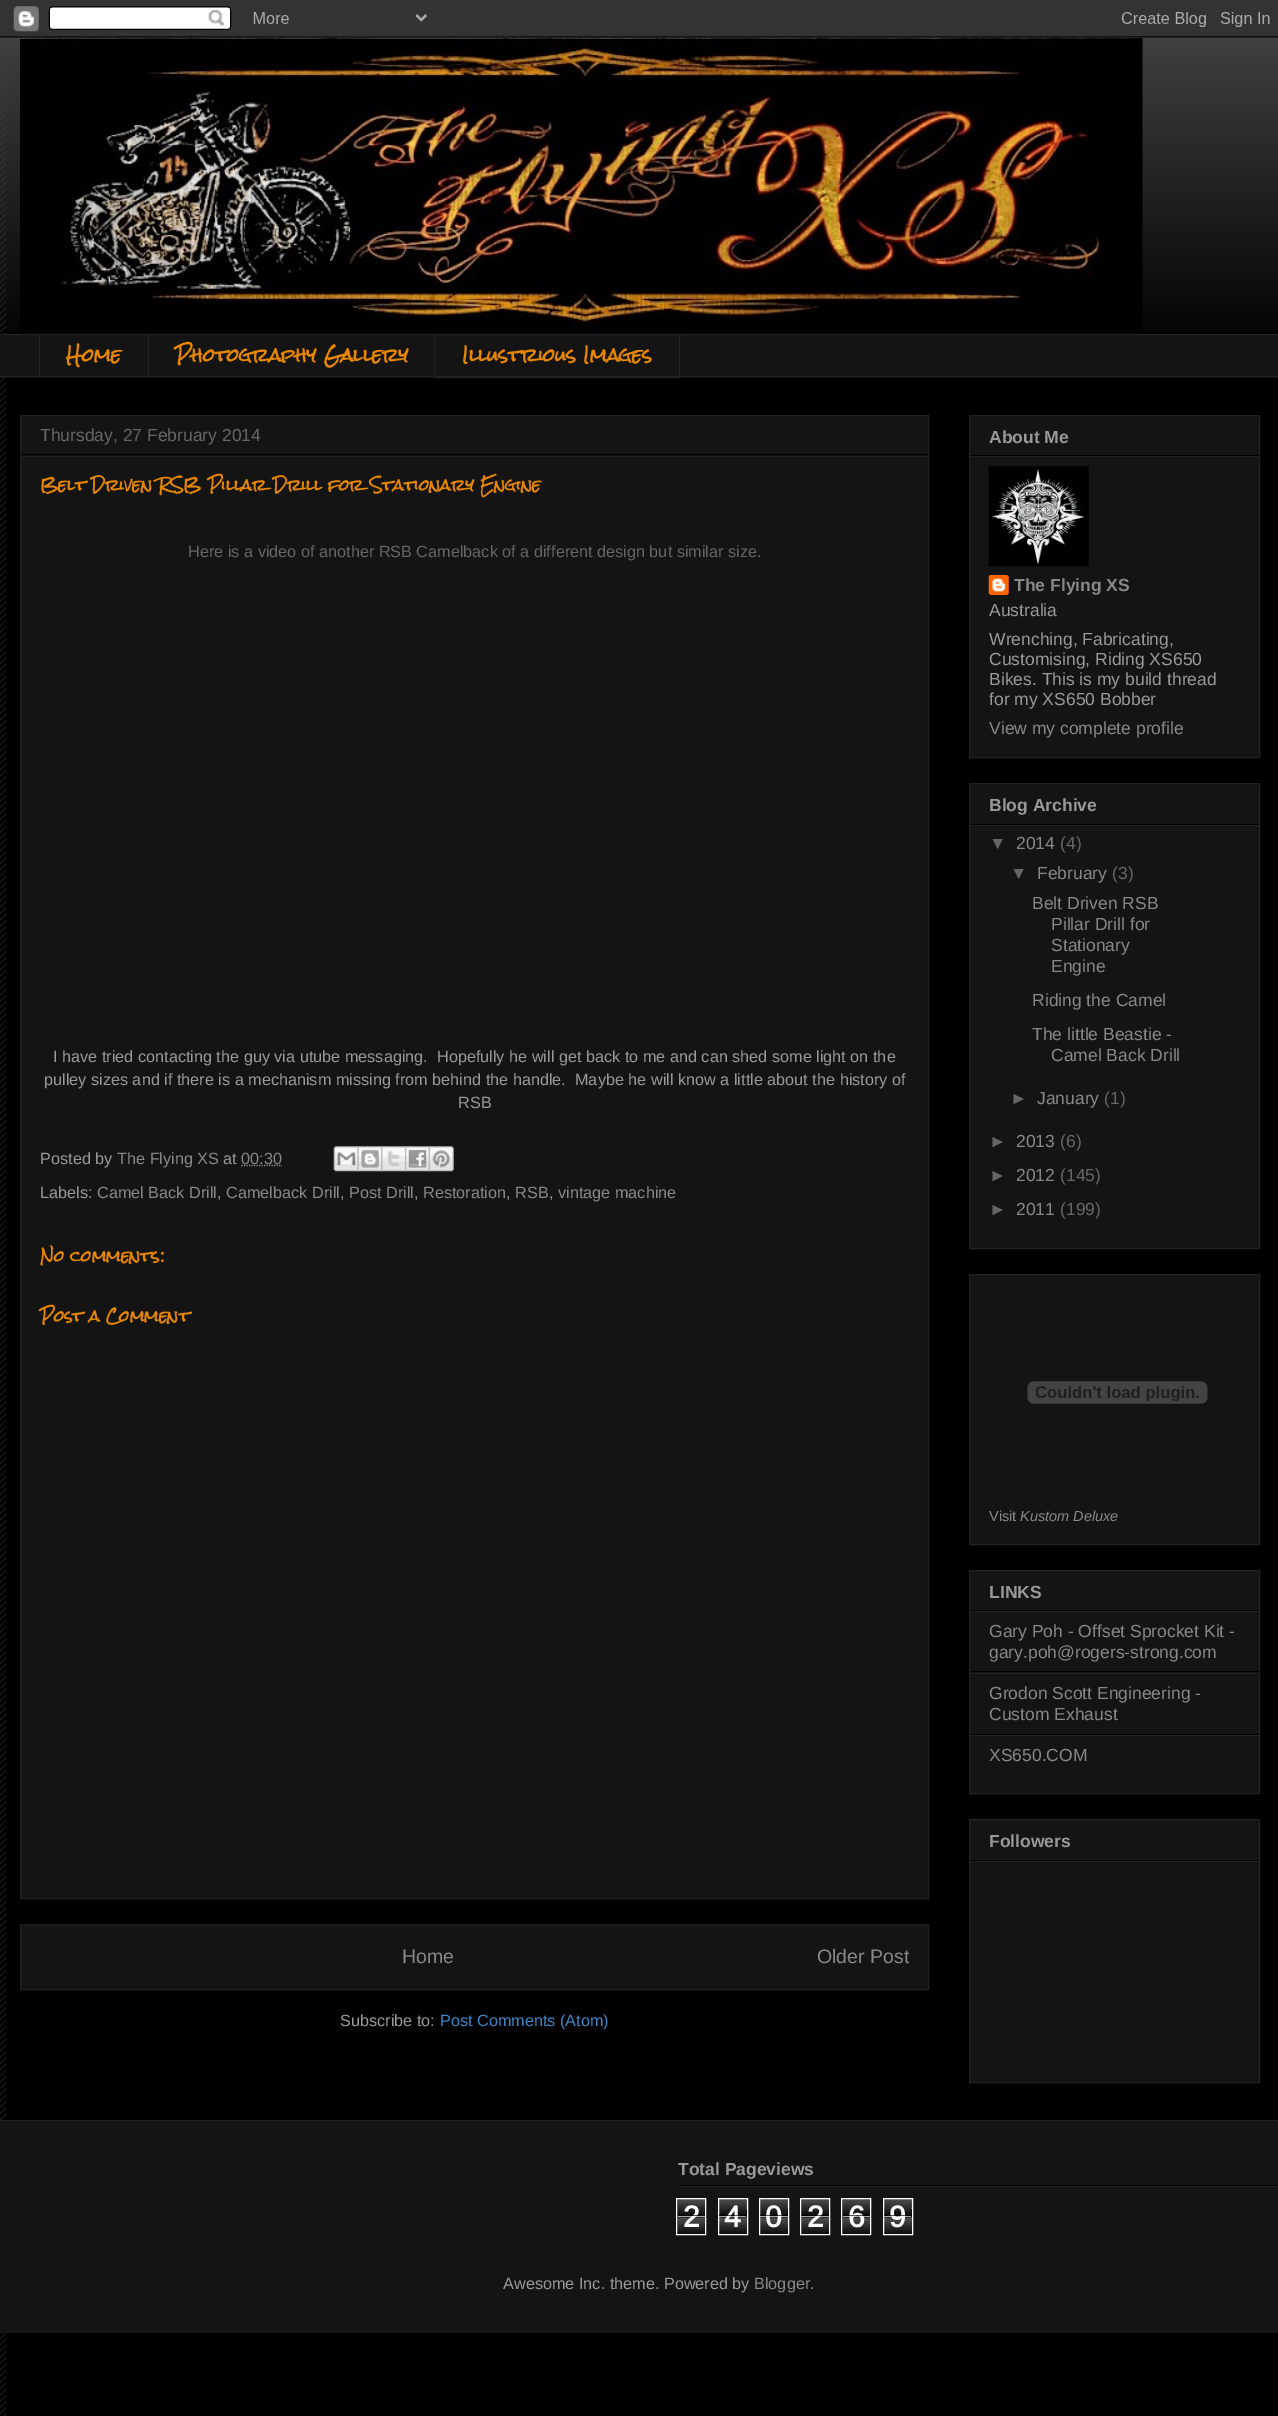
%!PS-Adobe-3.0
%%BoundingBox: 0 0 1278 2416
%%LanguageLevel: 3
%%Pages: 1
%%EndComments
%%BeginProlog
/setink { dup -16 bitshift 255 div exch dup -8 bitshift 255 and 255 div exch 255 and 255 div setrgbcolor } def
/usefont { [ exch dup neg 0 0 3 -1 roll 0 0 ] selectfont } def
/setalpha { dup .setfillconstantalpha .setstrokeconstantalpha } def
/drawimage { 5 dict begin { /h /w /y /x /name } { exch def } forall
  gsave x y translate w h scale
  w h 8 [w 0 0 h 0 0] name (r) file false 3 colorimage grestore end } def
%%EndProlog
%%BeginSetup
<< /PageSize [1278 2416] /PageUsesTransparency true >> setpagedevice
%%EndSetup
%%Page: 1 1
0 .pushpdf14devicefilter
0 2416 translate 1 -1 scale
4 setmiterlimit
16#000000 setink
0 0 1278 2416 rectfill
(img1.raw) 0 36 7 2380 drawimage
(img3.raw) 0 36 1278 298 drawimage
(img2.raw) 0 0 1278 38 drawimage
(img4.raw) 20 38 1123 295 drawimage
[
    [0 335 1278 43 16#141414]
    [0 334 1278 1 16#222222]
    [39 334 1 44 16#222222]
] { aload pop setink rectfill } forall
/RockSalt-Bold 17.5 usefont
16#E78701 setink
66 362 moveto (Home) show
16#222222 setink
148 334 1 44 rectfill
16#E78701 setink
175 362 moveto (Photography Gallery) show
16#222222 setink
434.5 334.5 245 43 rectstroke
16#E78701 setink
462 362 moveto (Illustrious Images) show
16#222222 setink
0 376 1278 1 rectfill
16#141414 setink
20.5 415.5 moveto 928.5 415.5 lineto 928.5 1898.5 lineto 20.5 1898.5 lineto closepath gsave fill grestore
16#222222 setink
stroke
16#000000 setink
21 454 907 1 rectfill
/LiberationSans-Regular 17.5 usefont
16#666666 setink
40 441 moveto (Thursday, 27 February 2014) show
16#222222 setink
21 456 907 1 rectfill
/RockSalt-Bold 15 usefont
16#E78701 setink
40 491 moveto (Belt Driven RSB Pillar Drill for Stationary Engine) show
/LiberationSans-Regular 16.25 usefont
16#666666 setink
188 557 moveto (Here is a video of another RSB Camelback of a different design but similar size.) show
/Arimo-Regular 16.25 usefont
16#999999 setink
[
    [(I have tried contacting the guy via utube messaging.  Hopefully he will get back to me and can shed some light on the) 53 1062]
    [(pulley sizes and if there is a mechanism missing from behind the handle.  Maybe he will know a little about the history of) 44 1085]
    [(RSB) 458 1108]
    [(Posted by) 40 1164]
] { aload pop moveto show } forall
16#888888 setink
117 1164 moveto (The Flying XS) show
16#999999 setink
223 1164 moveto (at) show
16#888888 setink
1.2 setlinewidth
[1.25 1.25] 0 setdash
241.5 1165.5 moveto 282 1165.5 lineto stroke
241 1164 moveto (00:30) show
(img5.raw) 333 1146 26 26 drawimage
(img6.raw) 357 1146 26 26 drawimage
(img7.raw) 381 1146 26 26 drawimage
(img8.raw) 405 1146 25 26 drawimage
(img9.raw) 428 1146 26 26 drawimage
16#999999 setink
40 1198 moveto (Labels:) show
16#888888 setink
97 1198 moveto (Camel Back Drill) show
16#999999 setink
217 1198 moveto (,) show
16#888888 setink
226 1198 moveto (Camelback Drill) show
16#999999 setink
340 1198 moveto (,) show
16#888888 setink
349 1198 moveto (Post Drill) show
16#999999 setink
414 1198 moveto (,) show
16#888888 setink
423 1198 moveto (Restoration) show
16#999999 setink
506 1198 moveto (,) show
16#888888 setink
515 1198 moveto (RSB) show
16#999999 setink
549 1198 moveto (,) show
16#888888 setink
558 1198 moveto (vintage machine) show
/RockSalt-Bold 15 usefont
16#E78701 setink
40 1262 moveto (No comments:) show
40 1322 moveto (Post a Comment) show
16#141414 setink
20.5 1924.5 moveto 928.5 1924.5 lineto 928.5 1989.5 lineto 20.5 1989.5 lineto closepath gsave fill grestore
16#222222 setink
1 setlinewidth
[] 0 setdash
stroke
/Arimo-Regular 19.5 usefont
16#888888 setink
402 1963 moveto (Home) show
817 1963 moveto (Older Post) show
/Arimo-Regular 16.25 usefont
16#999999 setink
340 2026 moveto (Subscribe to:) show
16#3D85C6 setink
440 2026 moveto (Post Comments \(Atom\)) show
16#141414 setink
969.5 415.5 moveto 1259.5 415.5 lineto 1259.5 757.5 lineto 969.5 757.5 lineto closepath gsave fill grestore
16#222222 setink
stroke
16#000000 setink
970 455 289 1 rectfill
/LiberationSans-Bold 17.5 usefont
16#999999 setink
989 443 moveto (About Me) show
16#222222 setink
970 456 289 1 rectfill
(img10.raw) 988 466 101 101 drawimage
(img11.raw) 988 575 21 20 drawimage
16#888888 setink
1014 591 moveto (The Flying XS) show
/LiberationSans-Regular 17.5 usefont
16#999999 setink
[
    [(Australia) 989 616]
    [(Wrenching, Fabricating,) 989 645]
    [(Customising, Riding XS650) 989 665]
    [(Bikes. This is my build thread) 989 685]
    [(for my XS650 Bobber) 989 705]
] { aload pop moveto show } forall
16#888888 setink
989 734 moveto (View my complete profile) show
16#141414 setink
969.5 783.5 moveto 1259.5 783.5 lineto 1259.5 1248.5 lineto 969.5 1248.5 lineto closepath gsave fill grestore
16#222222 setink
stroke
16#000000 setink
970 824 289 1 rectfill
/LiberationSans-Bold 17.5 usefont
16#999999 setink
989 811 moveto (Blog Archive) show
16#222222 setink
970 825 289 1 rectfill
/LiberationSans-Regular 17.5 usefont
16#666666 setink
989 849 moveto (▼) show
16#888888 setink
1016 849 moveto (2014) show
16#666666 setink
1060 849 moveto (\(4\)) show
1010 879 moveto (▼) show
16#888888 setink
1037 879 moveto (February) show
16#666666 setink
1112 879 moveto (\(3\)) show
16#888888 setink
[
    [(Belt Driven RSB) 1032 909]
    [(Pillar Drill for) 1051 930]
    [(Stationary) 1051 951]
    [(Engine) 1051 972]
    [(Riding the Camel) 1032 1006]
    [(The little Beastie -) 1032 1040]
    [(Camel Back Drill) 1051 1061]
] { aload pop moveto show } forall
16#666666 setink
1010 1104 moveto (►) show
16#888888 setink
1037 1104 moveto (January) show
16#666666 setink
1104 1104 moveto (\(1\)) show
989 1147 moveto (►) show
16#888888 setink
1016 1147 moveto (2013) show
16#666666 setink
1060 1147 moveto (\(6\)) show
989 1181 moveto (►) show
16#888888 setink
1016 1181 moveto (2012) show
16#666666 setink
1060 1181 moveto (\(145\)) show
989 1215 moveto (►) show
16#888888 setink
1016 1215 moveto (2011) show
16#666666 setink
1060 1215 moveto (\(199\)) show
16#141414 setink
969.5 1274.5 moveto 1259.5 1274.5 lineto 1259.5 1544.5 lineto 969.5 1544.5 lineto closepath gsave fill grestore
16#222222 setink
stroke
(img12.raw) 1027 1381 181 23 drawimage
/LiberationSans-Regular 14.5 usefont
16#888888 setink
989 1521 moveto (Visit) show
/LiberationSans-Italic 14.5 usefont
1020 1521 moveto (Kustom Deluxe) show
16#141414 setink
969.5 1570.5 moveto 1259.5 1570.5 lineto 1259.5 1793.5 lineto 969.5 1793.5 lineto closepath gsave fill grestore
16#222222 setink
stroke
16#000000 setink
970 1610 289 1 rectfill
/LiberationSans-Bold 17.5 usefont
16#999999 setink
989 1598 moveto (LINKS) show
16#222222 setink
970 1611 289 1 rectfill
16#000000 setink
970 1671 289 1 rectfill
/LiberationSans-Regular 17.5 usefont
16#888888 setink
989 1637 moveto (Gary Poh - Offset Sprocket Kit -) show
989 1658 moveto (gary.poh@rogers-strong.com) show
16#222222 setink
970 1673 289 1 rectfill
16#000000 setink
970 1734 289 1 rectfill
16#888888 setink
989 1699 moveto (Grodon Scott Engineering -) show
989 1720 moveto (Custom Exhaust) show
16#222222 setink
970 1735 289 1 rectfill
16#888888 setink
989 1761 moveto (XS650.COM) show
16#141414 setink
969.5 1819.5 moveto 1259.5 1819.5 lineto 1259.5 2082.5 lineto 969.5 2082.5 lineto closepath gsave fill grestore
16#222222 setink
stroke
16#000000 setink
970 1860 289 1 rectfill
/LiberationSans-Bold 17.5 usefont
16#999999 setink
989 1847 moveto (Followers) show
[
    [970 1861 289 1 16#222222]
    [0 2121 1278 212 16#141414]
    [0 2120 1278 1 16#222222]
    [678 2185 600 1 16#000000]
] { aload pop setink rectfill } forall
16#999999 setink
678 2175 moveto (Total Pageviews) show
16#222222 setink
678 2186 600 1 rectfill
(img13.raw) 677 2198 30 37 drawimage
16#FFFFFF setink
676.5 2198.5 29 36 rectstroke
/Arimo-Bold 30 usefont
683 2227 moveto (2) show
0.65 setalpha
16#000000 setink
678 2215 27 1 rectfill
16#FFFFFF setink
678 2216 27 1 rectfill
1 setalpha
(img14.raw) 719 2199 28 35 drawimage
718.5 2198.5 29 36 rectstroke
724 2227 moveto (4) show
0.65 setalpha
16#000000 setink
719 2215 27 1 rectfill
16#FFFFFF setink
719 2216 27 1 rectfill
1 setalpha
(img15.raw) 760 2199 28 35 drawimage
759.5 2198.5 29 36 rectstroke
765 2227 moveto (0) show
0.65 setalpha
16#000000 setink
760 2215 28 1 rectfill
16#FFFFFF setink
760 2216 28 1 rectfill
1 setalpha
(img16.raw) 801 2199 28 35 drawimage
800.5 2198.5 29 36 rectstroke
807 2227 moveto (2) show
0.65 setalpha
16#000000 setink
801 2215 28 1 rectfill
16#FFFFFF setink
801 2216 28 1 rectfill
1 setalpha
(img13.raw) 842 2198 30 37 drawimage
841.5 2198.5 29 36 rectstroke
848 2227 moveto (6) show
0.65 setalpha
16#000000 setink
843 2215 27 1 rectfill
16#FFFFFF setink
843 2216 27 1 rectfill
1 setalpha
(img14.raw) 884 2199 28 35 drawimage
883.5 2198.5 29 36 rectstroke
889 2227 moveto (9) show
0.65 setalpha
16#000000 setink
884 2215 27 1 rectfill
16#FFFFFF setink
884 2216 27 1 rectfill
/Arimo-Regular 16.25 usefont
1 setalpha
16#999999 setink
503 2289 moveto (Awesome Inc. theme. Powered by) show
16#888888 setink
754 2289 moveto (Blogger) show
16#999999 setink
810 2289 moveto (.) show
.poppdf14devicefilter showpage
%%EOF
